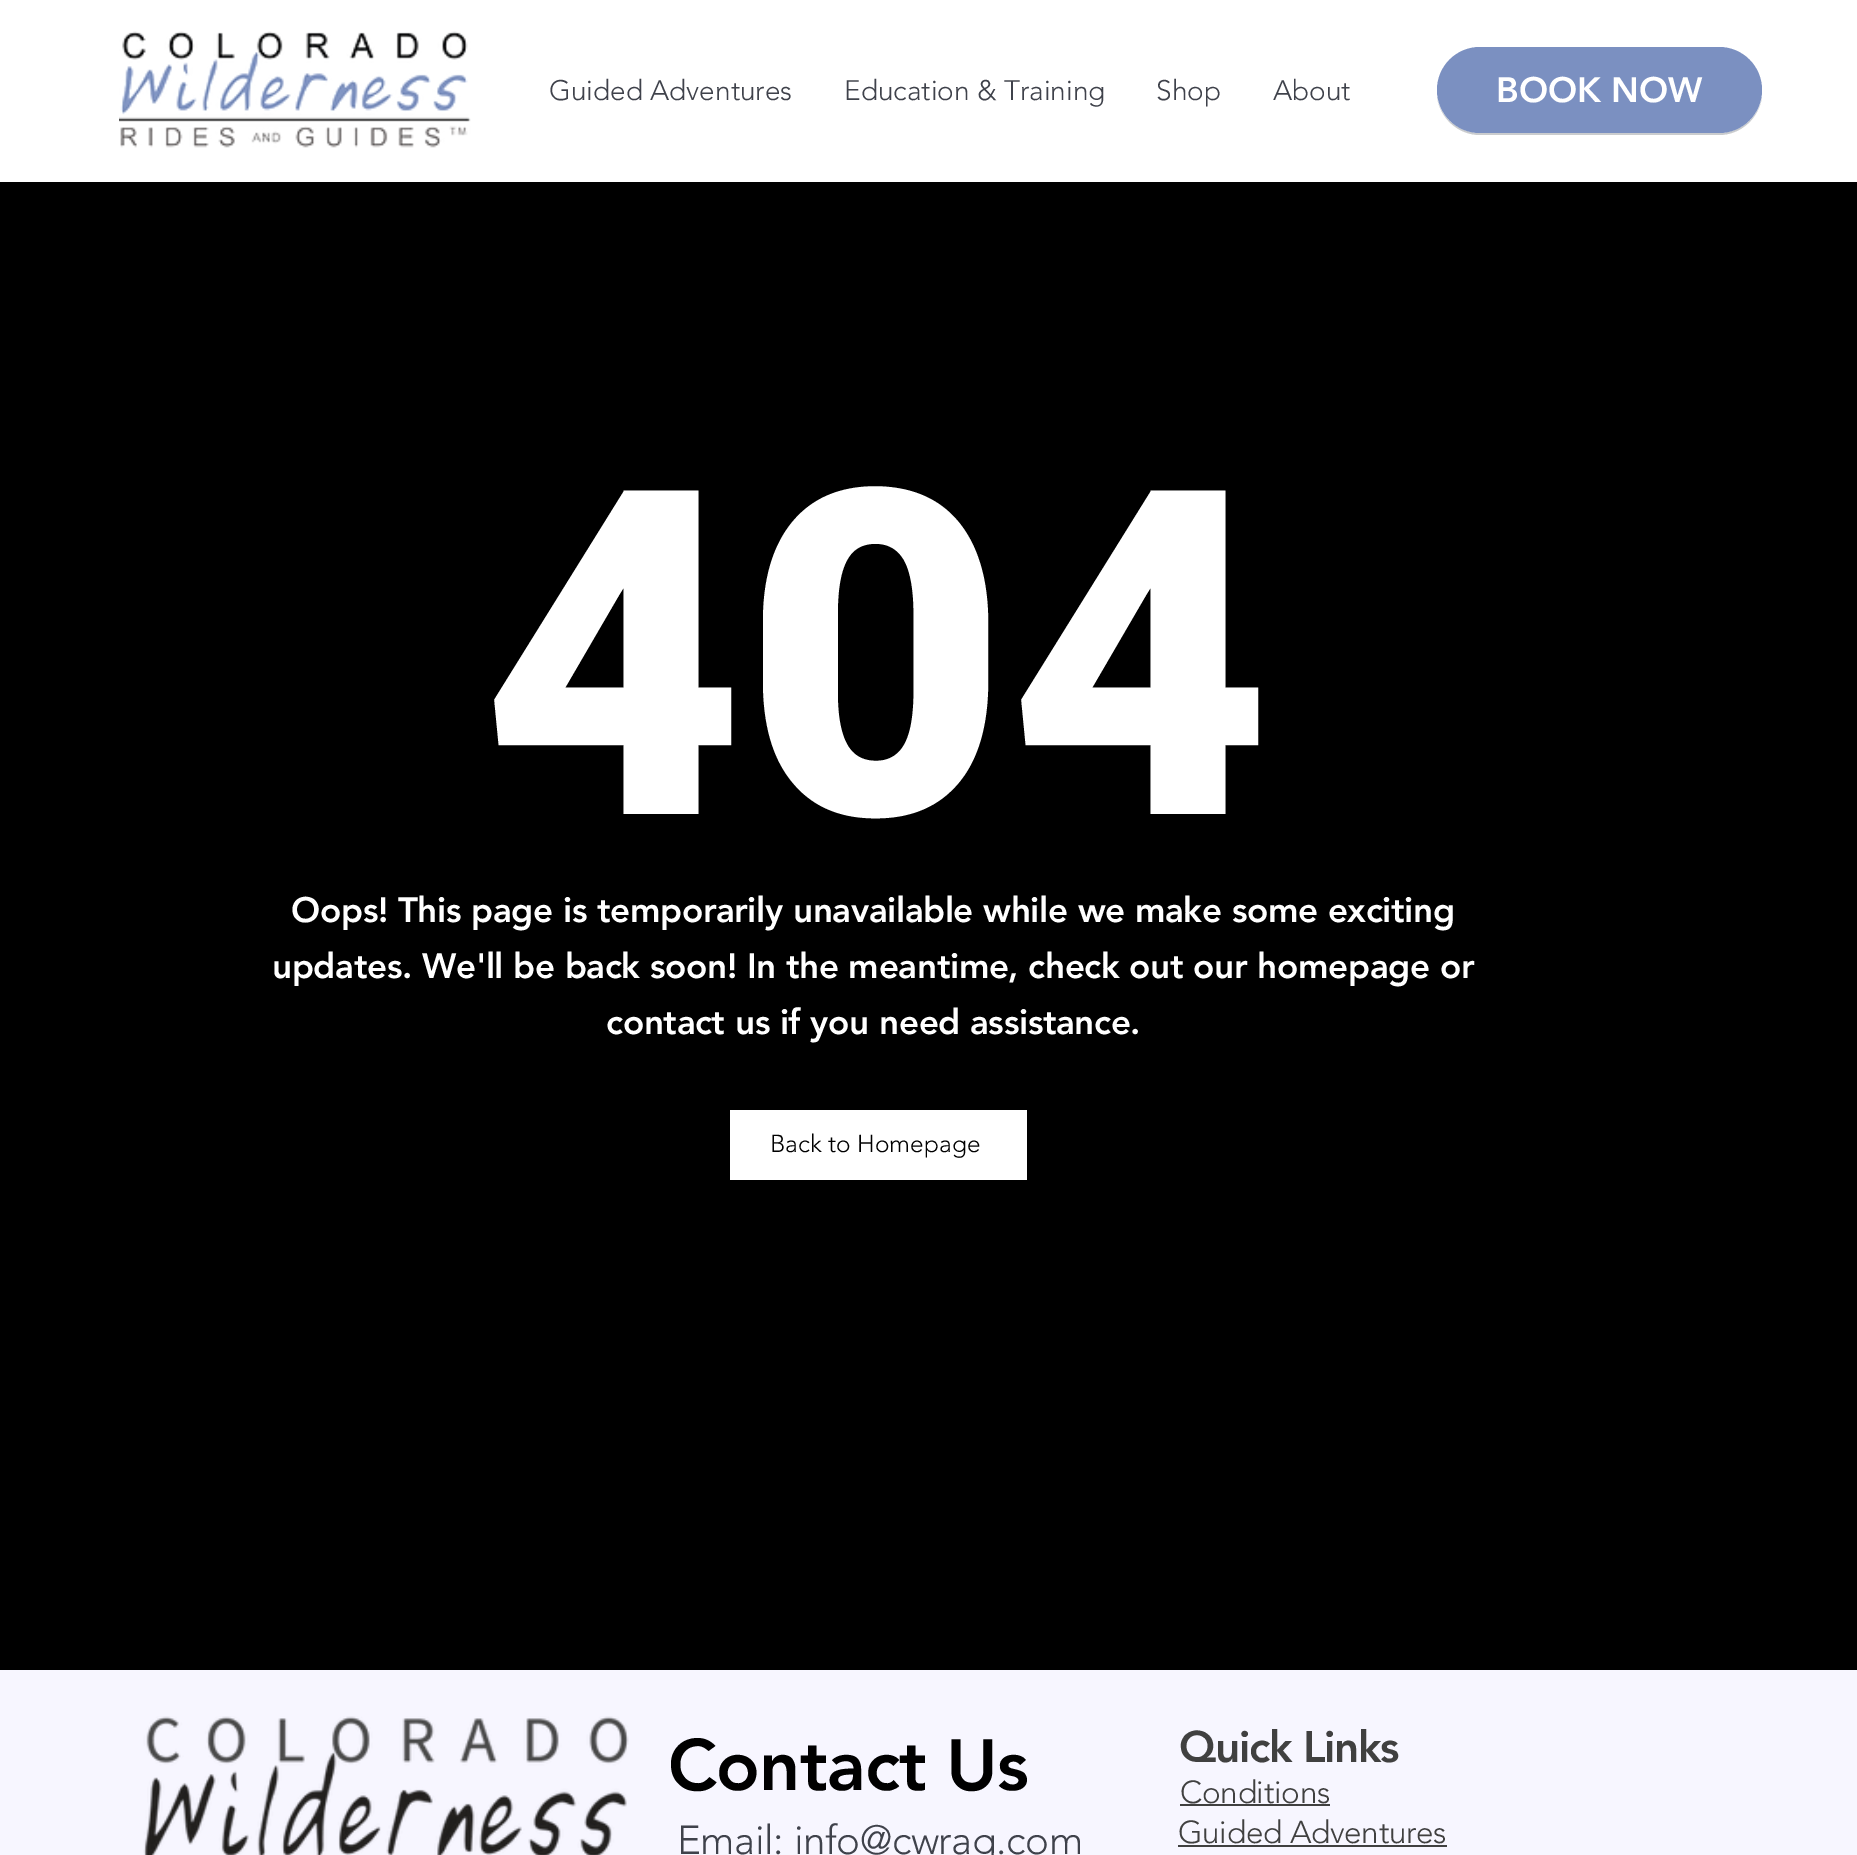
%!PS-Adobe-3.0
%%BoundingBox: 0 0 1857 1855
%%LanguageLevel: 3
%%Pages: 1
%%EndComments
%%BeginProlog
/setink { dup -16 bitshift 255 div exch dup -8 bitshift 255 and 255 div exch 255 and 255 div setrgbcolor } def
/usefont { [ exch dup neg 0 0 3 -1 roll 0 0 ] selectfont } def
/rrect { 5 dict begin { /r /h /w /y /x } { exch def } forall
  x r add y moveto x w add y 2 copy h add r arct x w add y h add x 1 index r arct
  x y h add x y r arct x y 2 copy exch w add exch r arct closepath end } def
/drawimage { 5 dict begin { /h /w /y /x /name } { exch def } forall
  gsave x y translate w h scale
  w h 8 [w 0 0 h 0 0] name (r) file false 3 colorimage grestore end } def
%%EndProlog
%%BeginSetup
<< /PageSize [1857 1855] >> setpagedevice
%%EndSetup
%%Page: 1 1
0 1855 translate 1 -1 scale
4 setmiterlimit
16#FFFFFF setink
0 0 1857 1855 rectfill
(img1.raw) 119 31 352 117 drawimage
/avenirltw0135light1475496-Light 28 usefont
16#3F424B setink
[
    [(Guided Adventures) 549 100]
    [(Education & Training) 844 100]
    [(Shop) 1156 100]
    [(About) 1273 100]
] { aload pop moveto show } forall
16#CACCCE setink
1437 97 moveto 1440 118 1458 135 1480 135 curveto 1719 135 lineto 1741 135 1759 118 1762 97 curveto 1759 117 1741 133 1719 133 curveto 1480 133 lineto 1458 133 1440 117 1437 97 curveto closepath fill
16#7B90C1 setink
1437 47 325 86 43 rrect fill
/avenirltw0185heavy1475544-Black 35 usefont
16#FFFFFF setink
1496 102 moveto (BOOK NOW) show
16#000000 setink
0 182 1857 1488 rectfill
/Roboto-Black 455 usefont
16#FFFFFF setink
481 814 moveto (404) show
/avenirltw0185heavy1475544-Black 35 usefont
291 922 moveto -0.35 0 (Oops! This page is temporarily unavailable while we make some exciting) ashow
272 978 moveto -0.35 0 (updates. We'll be back soon! In the meantime, check out our homepage or) ashow
606 1034 moveto -0.35 0 (contact us if you need assistance.) ashow
730 1110 297 70 rectfill
/avenirltw0135light1475496-Light 24.5 usefont
16#000000 setink
770 1152 moveto (Back to Homepage) show
16#F7F6FF setink
0 1670 1857 185 rectfill
(img2.raw) 143 1716 486 139 drawimage
/avenirltw0185heavy1475544-Black 71.75 usefont
16#000000 setink
668 1790 moveto -0.75 0 (Contact Us) ashow
/avenirltw0135light1475496-Light 40.25 usefont
16#3F424B setink
677 1854 moveto -0.4 0 (Email: info@cwrag.com) ashow
/avenirltw0185heavy1475544-Black 43.75 usefont
16#404040 setink
1179 1762 moveto -1.25 0 (Quick Links) ashow
/avenirltw0135light1475496-Light 31.5 usefont
1180 1803 moveto -0.3 0 (Conditions) ashow
1180 1804 150 2 rectfill
1178 1843 moveto -0.3 0 (Guided Adventures) ashow
1178 1845 269 2 rectfill
showpage
%%EOF
